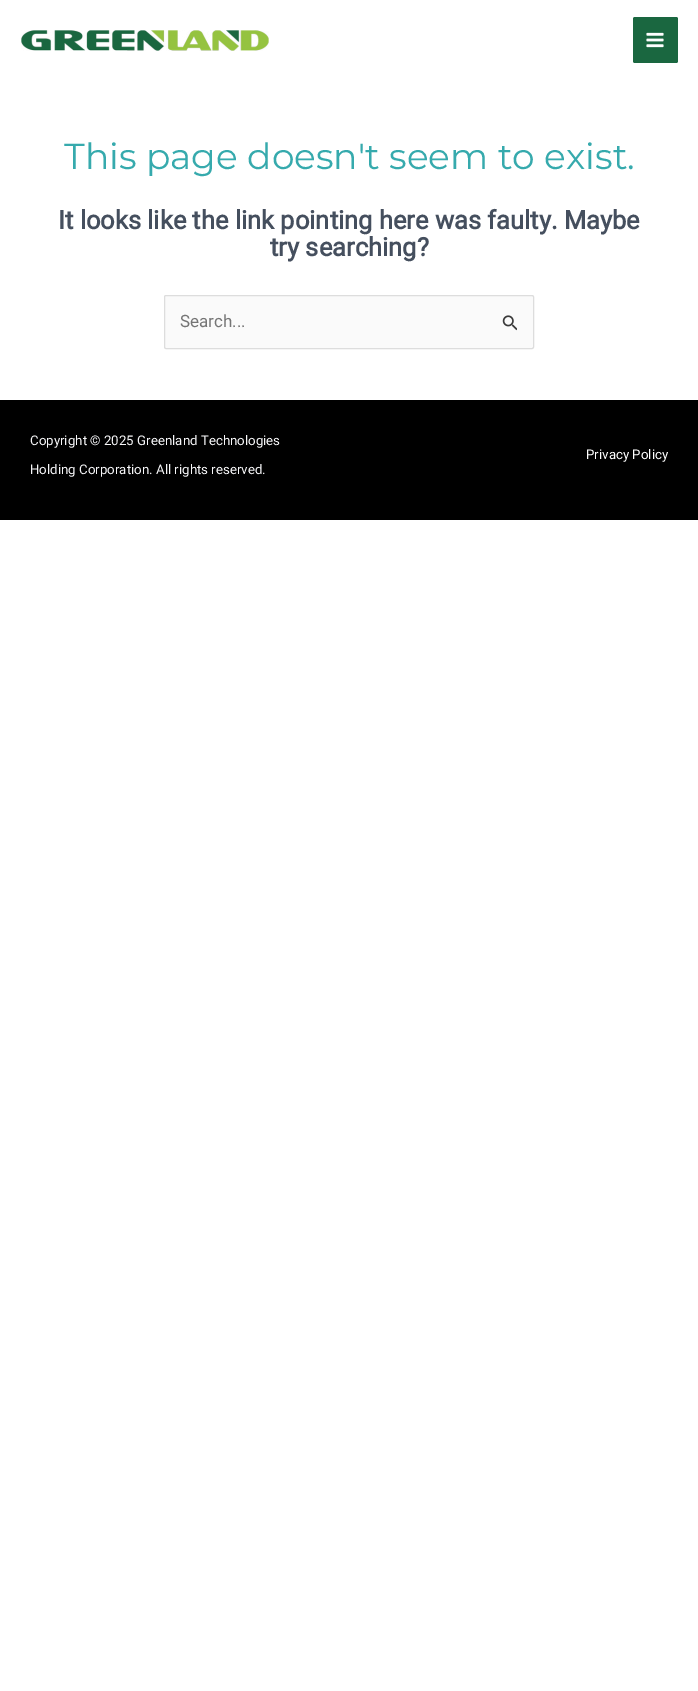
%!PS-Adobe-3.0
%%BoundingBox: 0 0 698 1691
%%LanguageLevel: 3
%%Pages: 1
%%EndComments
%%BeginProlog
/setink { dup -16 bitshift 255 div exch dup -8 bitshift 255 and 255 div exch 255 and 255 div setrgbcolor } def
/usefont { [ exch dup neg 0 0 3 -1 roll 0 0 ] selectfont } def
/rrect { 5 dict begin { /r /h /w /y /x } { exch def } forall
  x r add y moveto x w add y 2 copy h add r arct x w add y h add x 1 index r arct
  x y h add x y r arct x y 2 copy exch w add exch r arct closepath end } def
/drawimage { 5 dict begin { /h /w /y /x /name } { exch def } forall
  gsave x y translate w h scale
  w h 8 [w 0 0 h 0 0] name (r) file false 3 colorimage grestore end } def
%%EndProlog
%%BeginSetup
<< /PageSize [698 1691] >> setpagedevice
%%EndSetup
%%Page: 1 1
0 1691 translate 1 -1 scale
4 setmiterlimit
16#FFFFFF setink
0 0 698 1691 rectfill
(img1.raw) 21 30 248 21 drawimage
16#1A6740 setink
633 17 45 46 2 rrect fill
(img2.raw) 646 32 18 16 drawimage
/Montserrat-Regular 36 usefont
16#36AAAD setink
64 169 moveto (This page doesn't seem to exist.) show
/Roboto-Bold 25.5 usefont
16#454F5E setink
58 229 moveto (It looks like the link pointing here was faulty. Maybe) show
270 256 moveto (try searching?) show
16#FAFAFA setink
164.5 295.5 369 53 1.5 rrect gsave fill grestore
16#DDDDDD setink
stroke
/Roboto-Regular 17 usefont
16#757575 setink
180 327 moveto (Search...) show
(img3.raw) 502 315 15 16 drawimage
16#000000 setink
0 400 698 120 rectfill
/Roboto-Regular 13.3 usefont
16#F6F6F8 setink
30 445 moveto (Copyright © 2025 Greenland Technologies) show
30 474 moveto (Holding Corporation. All rights reserved.) show
16#FFFFFF setink
586 459 moveto (Privacy Policy) show
showpage
%%EOF
